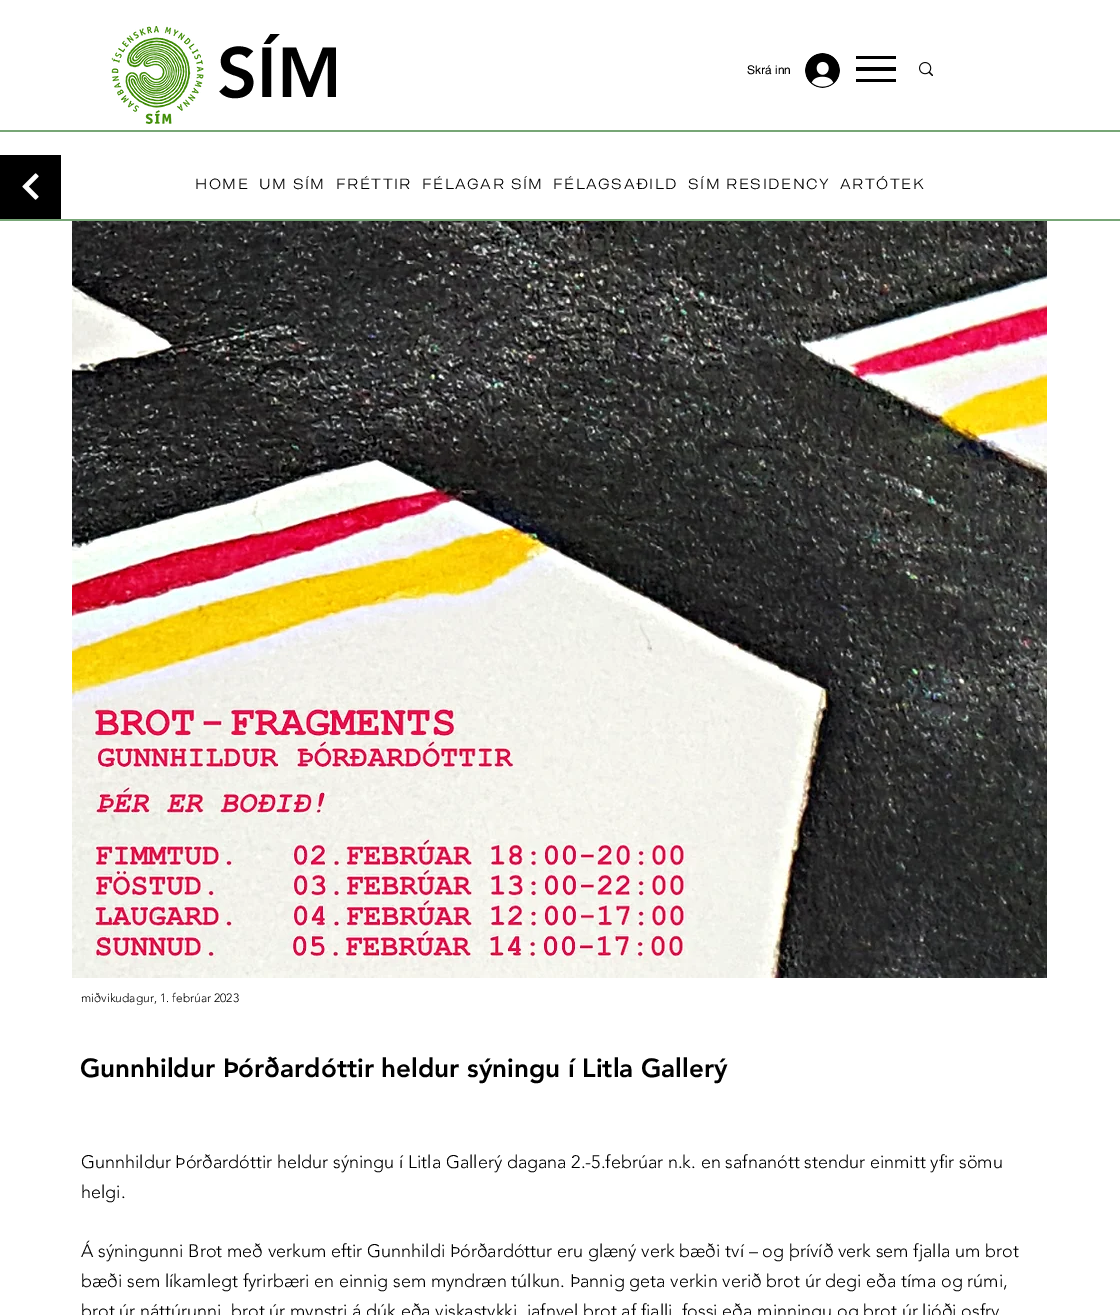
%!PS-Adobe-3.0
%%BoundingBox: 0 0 1120 1315
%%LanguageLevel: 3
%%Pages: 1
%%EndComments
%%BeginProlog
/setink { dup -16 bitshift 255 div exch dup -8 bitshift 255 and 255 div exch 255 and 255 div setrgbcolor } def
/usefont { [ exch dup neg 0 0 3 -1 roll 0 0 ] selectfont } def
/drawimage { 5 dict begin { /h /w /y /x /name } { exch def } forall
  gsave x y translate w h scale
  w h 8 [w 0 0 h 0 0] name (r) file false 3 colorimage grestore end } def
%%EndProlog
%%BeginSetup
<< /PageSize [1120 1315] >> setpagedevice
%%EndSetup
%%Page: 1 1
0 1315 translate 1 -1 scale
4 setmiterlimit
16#FFFFFF setink
0 0 1120 1315 rectfill
(img1.raw) 111 26 93 98 drawimage
/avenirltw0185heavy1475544-Black 70 usefont
16#000000 setink
217 97 moveto (SÍM) show
/helvetica-Regular 12 usefont
747 74 moveto (Skrá inn) show
(img2.raw) 805 53 35 35 drawimage
[
    [856 79 40 3 16#000000]
    [856 56 40 3 16#000000]
    [856 67 40 4 16#000000]
] { aload pop setink rectfill } forall
(img3.raw) 919 62 14 14 drawimage
16#77A676 setink
0 130 1120 2 rectfill
/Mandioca-Regular 15 usefont
16#000000 setink
195 189 moveto 1.5 0 (HOME) ashow
259 189 moveto 1.5 0 (UM SÍM) ashow
336 189 moveto 1.5 0 (FRÉTTIR) ashow
422 189 moveto 1.5 0 (FÉLAGAR SÍM) ashow
553 189 moveto 1.5 0 (FÉLAGSAÐILD) ashow
688 189 moveto 1.5 0 (SÍM RESIDENCY) ashow
840 189 moveto 1.5 0 (ARTÓTEK) ashow
16#77A676 setink
0 219 1120 2 rectfill
16#000000 setink
0 155 61 64 rectfill
(img4.raw) 22 173 17 27 drawimage
(img5.raw) 72 221 975 757 drawimage
/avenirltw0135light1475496-Light 12 usefont
81 1002 moveto (miðvikudagur, 1. febrúar 2023) show
/avenirltw0185heavy1475544-Black 26 usefont
80 1077 moveto (Gunnhildur Þórðardóttir heldur sýningu í Litla Gallerý) show
/avenirltw0135light1475496-Light 18 usefont
[
    [(Gunnhildur Þórðardóttir heldur sýningu í Litla Gallerý dagana 2.-5.febrúar n.k. en safnanótt stendur einmitt yfir sömu) 81 1168]
    [(helgi.) 81 1198]
    [(Á sýningunni Brot með verkum eftir Gunnhildi Þórðardóttur eru glæný verk bæði tví – og þrívíð verk sem fjalla um brot) 81 1257]
    [(bæði sem líkamlegt fyrirbæri en einnig sem myndræn túlkun. Þannig geta verkin verið brot úr degi eða tíma og rúmi,) 81 1287]
    [(brot úr náttúrunni, brot úr mynstri á dúk eða viskastykki, jafnvel brot af fjalli, fossi eða minningu og brot úr ljóði osfrv) 81 1317]
] { aload pop moveto show } forall
showpage
%%EOF
